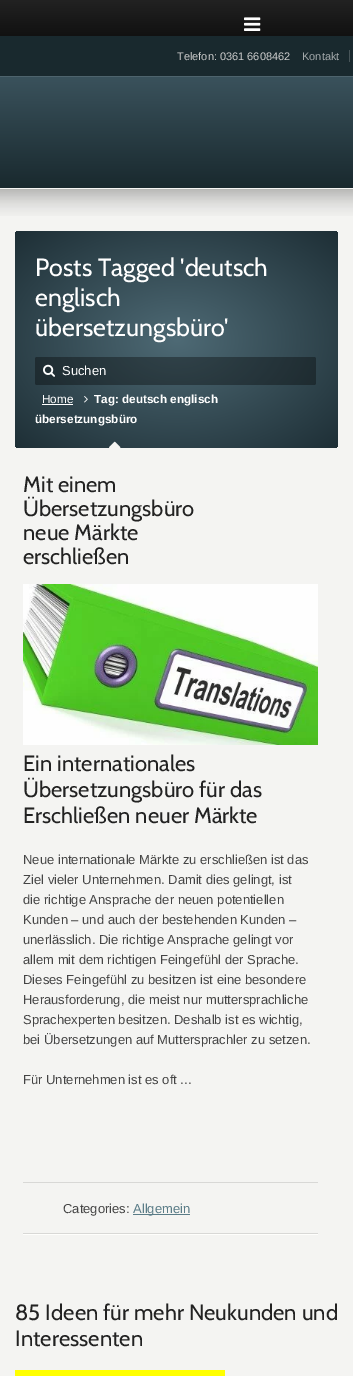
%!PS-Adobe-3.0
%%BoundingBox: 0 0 353 1376
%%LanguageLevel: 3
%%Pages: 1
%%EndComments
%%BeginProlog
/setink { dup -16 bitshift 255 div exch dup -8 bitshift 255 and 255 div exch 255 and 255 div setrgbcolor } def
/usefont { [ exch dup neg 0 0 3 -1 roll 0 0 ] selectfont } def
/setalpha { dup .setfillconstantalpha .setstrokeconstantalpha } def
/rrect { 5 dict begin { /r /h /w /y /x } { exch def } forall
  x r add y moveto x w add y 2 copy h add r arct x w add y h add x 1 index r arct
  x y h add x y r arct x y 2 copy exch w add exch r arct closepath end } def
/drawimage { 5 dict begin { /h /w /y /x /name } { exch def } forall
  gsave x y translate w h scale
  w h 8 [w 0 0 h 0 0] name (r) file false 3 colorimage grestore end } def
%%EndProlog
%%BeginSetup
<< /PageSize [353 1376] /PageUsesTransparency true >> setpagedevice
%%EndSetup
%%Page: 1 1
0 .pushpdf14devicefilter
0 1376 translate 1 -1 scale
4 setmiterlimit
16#F4F4F2 setink
0 0 353 1376 rectfill
gsave 0 0 moveto 353 0 lineto 353 36 lineto 0 36 lineto closepath clip newpath
<< /ShadingType 2 /ColorSpace /DeviceRGB /Coords [177 0 177 36] /Extend [true true] /Function << /FunctionType 2 /Domain [0 1] /C0 [0.133 0.133 0.133] /C1 [0.067 0.067 0.067] /N 1 >> >> shfill grestore
(img1.raw) 244 17 17 14 drawimage
16#19292E setink
0 36 353 40 rectfill
/LiberationSans-Regular 11 usefont
16#CCCCCC setink
177 60 moveto (Telefon: 0361 6608462) show
16#A3A9AB setink
302 60 moveto (Kontakt) show
16#475458 setink
349 50 1 12 rectfill
gsave 0 77 moveto 353 77 lineto 353 188 lineto 0 188 lineto closepath clip newpath
<< /ShadingType 2 /ColorSpace /DeviceRGB /Coords [177 77 177 188] /Extend [true true] /Function << /FunctionType 2 /Domain [0 1] /C0 [0.227 0.322 0.361] /C1 [0.098 0.161 0.18] /N 1 >> >> shfill grestore
16#4E646D setink
0 76 353 1 rectfill
(img2.raw) 0 189 353 27 drawimage
gsave 15 231 323 217 4 rrect clip newpath 177 340 translate 228 153 scale
<< /ShadingType 3 /ColorSpace /DeviceRGB /Coords [0 0 0 0 0 1] /Extend [true true] /Function << /FunctionType 2 /Domain [0 1] /C0 [0.306 0.416 0.459] /C1 [0.118 0.184 0.212] /N 1 >> >> shfill grestore
/Cabin-Regular 25 usefont
16#FFFFFF setink
[
    [(Posts Tagged 'deutsch) 35 276]
    [(englisch) 35 306]
    [(übersetzungsbüro') 35 336]
] { aload pop moveto show } forall
0.35 setalpha
16#000000 setink
35 357 281 28 2 rrect fill
1 setalpha
(img3.raw) 43 364 12 13 drawimage
/LiberationSans-Regular 13 usefont
16#FFFFFF setink
62 375 moveto (Suchen) show
/LiberationSans-Bold 11.75 usefont
94 403 moveto (Tag: deutsch englisch) show
35 423 moveto (übersetzungsbüro) show
(img4.raw) 109 441 12 7 drawimage
/LiberationSans-Regular 11.75 usefont
42 403 moveto (Home) show
42 404 31 1 rectfill
(img5.raw) 84 396 4 7 drawimage
/Cabin-Regular 22 usefont
16#222222 setink
[
    [(Mit einem) 23 492]
    [(Übersetzungsbüro) 23 516]
    [(neue Märkte) 23 540]
    [(erschließen) 23 564]
] { aload pop moveto show } forall
(img6.raw) 23 584 295 161 drawimage
[
    [(Ein internationales) 23 771]
    [(Übersetzungsbüro für das) 23 797]
    [(Erschließen neuer Märkte) 23 823]
] { aload pop moveto show } forall
/LiberationSans-Regular 13 usefont
16#444444 setink
[
    [(Neue internationale Märkte zu erschließen ist das) 23 864]
    [(Ziel vieler Unternehmen. Damit dies gelingt, ist) 23 884]
    [(die richtige Ansprache der neuen potentiellen) 23 904]
    [(Kunden – und auch der bestehenden Kunden –) 23 924]
    [(unerlässlich. Die richtige Ansprache gelingt vor) 23 944]
    [(allem mit dem richtigen Feingefühl der Sprache.) 23 964]
    [(Dieses Feingefühl zu besitzen ist eine besondere) 23 984]
    [(Herausforderung, die meist nur muttersprachliche) 23 1004]
    [(Sprachexperten besitzen. Deshalb ist es wichtig,) 23 1024]
    [(bei Übersetzungen auf Muttersprachler zu setzen.) 23 1044]
    [(Für Unternehmen ist es oft ...) 23 1084]
] { aload pop moveto show } forall
16#FEFEFC setink
23 1234 295 1 rectfill
16#D8D8D6 setink
23 1182 295 1 rectfill
16#444444 setink
63 1213 moveto (Categories:) show
16#5A7C87 setink
133 1214 57 1 rectfill
133 1213 moveto (Allgemein) show
16#D8D8D6 setink
23 1233 295 1 rectfill
/Cabin-Regular 22.1 usefont
16#222222 setink
15 1320 moveto (85 Ideen für mehr Neukunden und) show
15 1346 moveto (Interessenten) show
16#FFFF00 setink
15 1370 210 6 rectfill
.poppdf14devicefilter showpage
%%EOF
